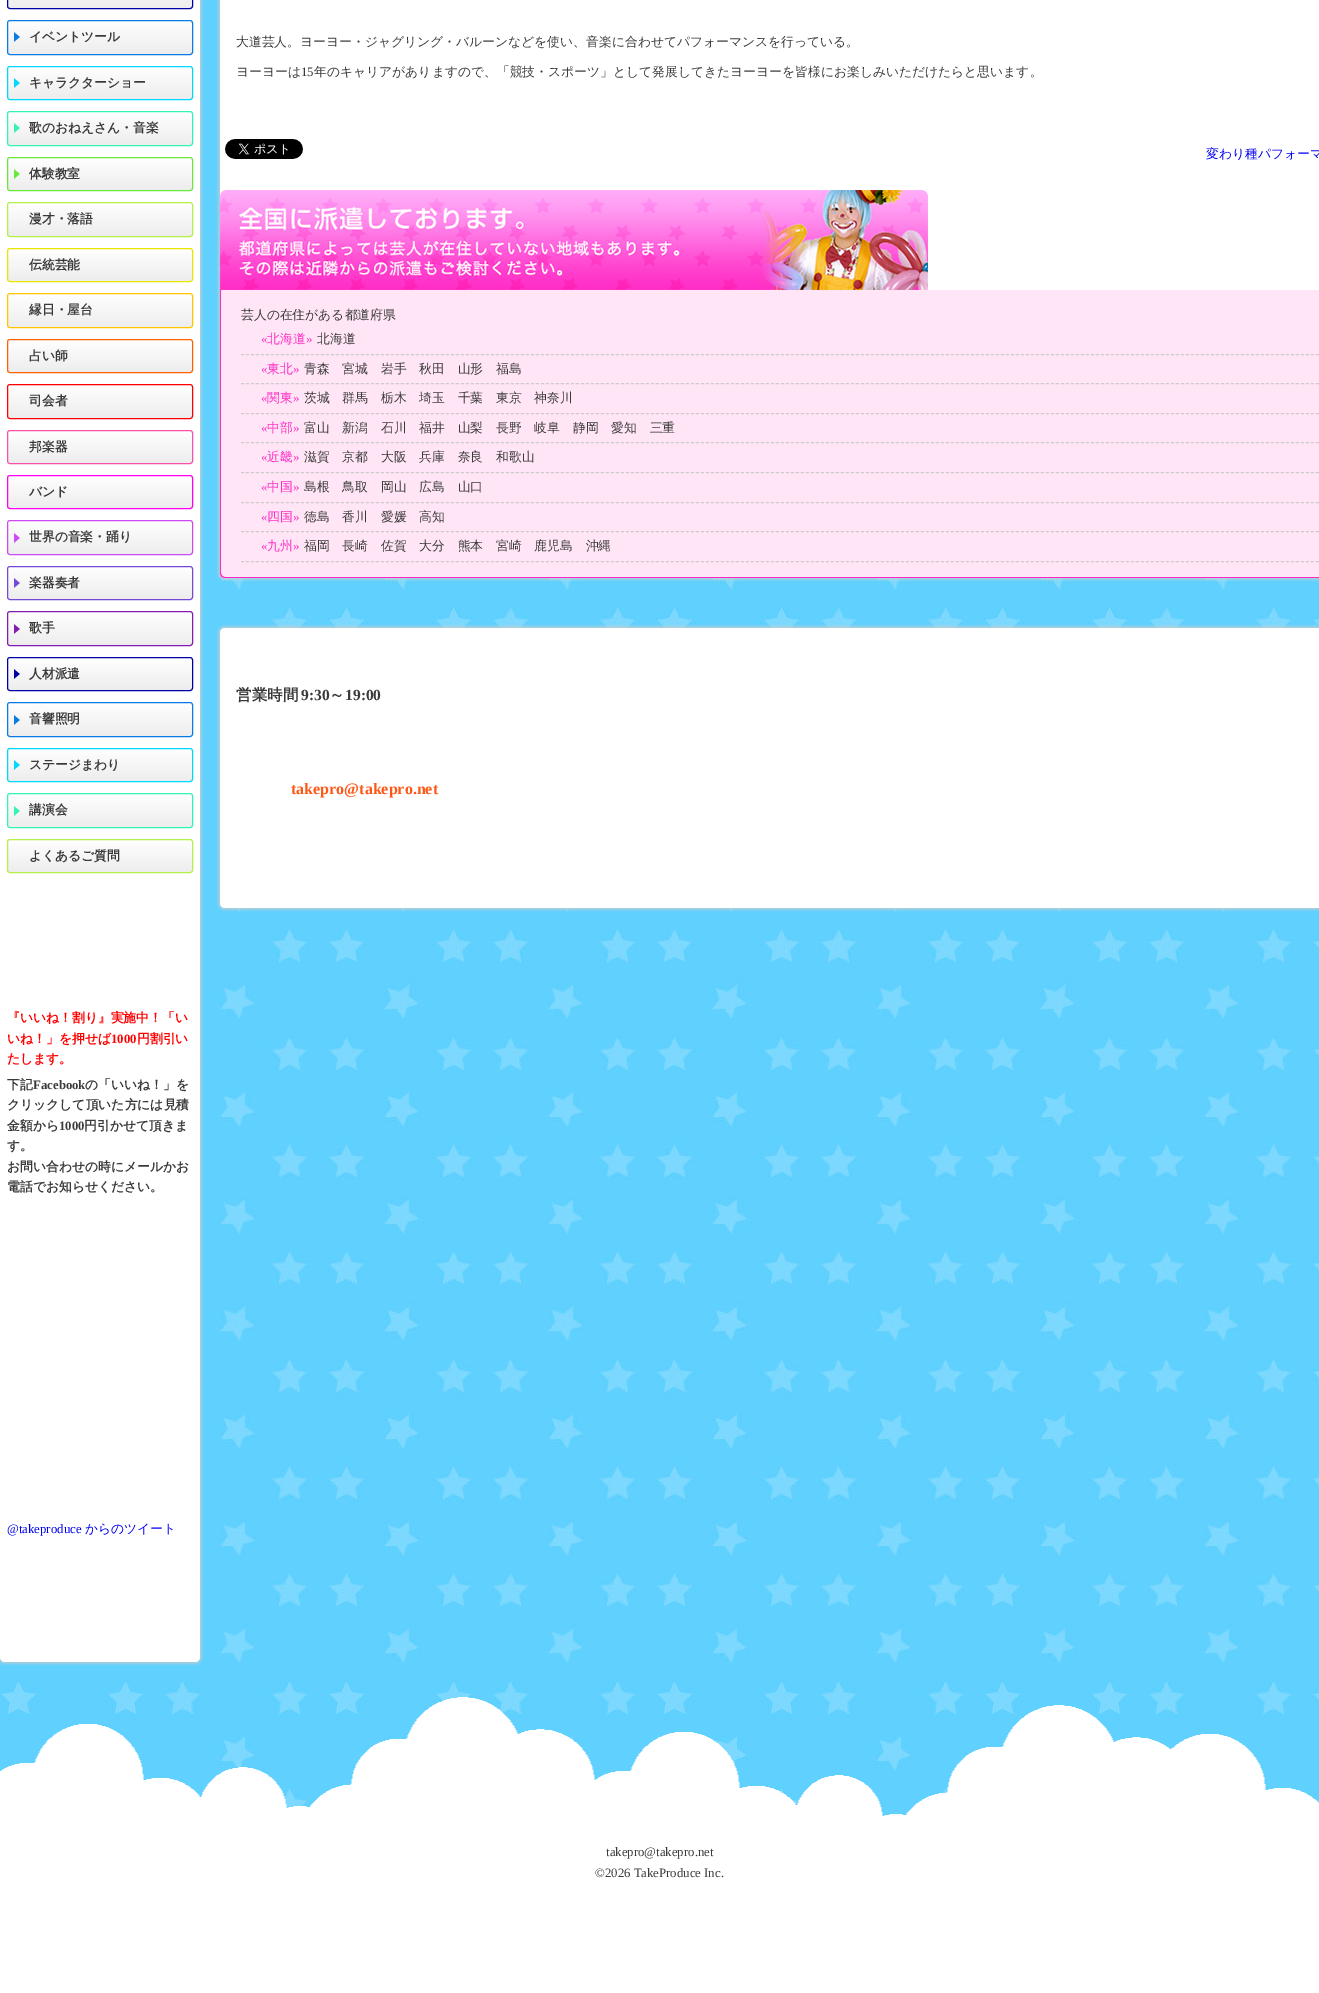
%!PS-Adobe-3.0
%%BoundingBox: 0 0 1319 1993
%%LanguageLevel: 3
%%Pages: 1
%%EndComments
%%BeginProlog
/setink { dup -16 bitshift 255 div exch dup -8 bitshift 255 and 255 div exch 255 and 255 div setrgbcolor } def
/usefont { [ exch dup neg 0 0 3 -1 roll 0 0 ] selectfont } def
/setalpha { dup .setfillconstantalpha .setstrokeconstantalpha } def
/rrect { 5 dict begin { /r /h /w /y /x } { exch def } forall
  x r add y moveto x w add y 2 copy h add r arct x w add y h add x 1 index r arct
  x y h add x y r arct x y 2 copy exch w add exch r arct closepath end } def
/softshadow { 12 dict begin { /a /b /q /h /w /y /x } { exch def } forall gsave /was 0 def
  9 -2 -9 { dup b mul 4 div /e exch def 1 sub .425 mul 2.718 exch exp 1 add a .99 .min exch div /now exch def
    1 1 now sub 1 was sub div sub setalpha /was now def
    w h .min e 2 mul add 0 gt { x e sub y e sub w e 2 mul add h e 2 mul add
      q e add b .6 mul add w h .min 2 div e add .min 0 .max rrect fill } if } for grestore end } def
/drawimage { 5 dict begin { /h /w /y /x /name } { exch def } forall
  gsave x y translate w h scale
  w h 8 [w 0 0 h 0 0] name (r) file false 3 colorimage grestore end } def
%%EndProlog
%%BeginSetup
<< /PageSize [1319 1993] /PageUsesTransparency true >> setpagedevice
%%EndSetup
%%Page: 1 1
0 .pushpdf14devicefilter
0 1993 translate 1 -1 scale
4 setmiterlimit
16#FFFFFF setink
0 0 1319 1993 rectfill
(img1.raw) 0 0 1319 1816 drawimage
(img2.raw) 0 1697 1319 296 drawimage
16#CCCCCC setink
-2 -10 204 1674 7 1 0.65 softshadow
16#FFFFFF setink
0 -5 200 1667 5 rrect fill
gsave
7 -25 186 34 3 rrect clip newpath
gsave 7 0 moveto 193 0 lineto 193 8 lineto 7 8 lineto closepath clip newpath
<< /ShadingType 2 /ColorSpace /DeviceRGB /Coords [100 -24 100 8] /Extend [true true] /Function << /FunctionType 3 /Domain [0 1] /Functions [<< /FunctionType 2 /Domain [0 1] /C0 [1 1 1] /C1 [0.965 0.965 0.965] /N 1 >> << /FunctionType 2 /Domain [0 1] /C0 [0.965 0.965 0.965] /C1 [0.929 0.929 0.929] /N 1 >>] /Bounds [0.47] /Encode [0 1 0 1] >> >> shfill grestore
grestore
16#0000A6 setink
7.5 -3.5 185 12 2.5 rrect stroke
gsave
7 20 186 35 3 rrect clip newpath
gsave 7 21 moveto 193 21 lineto 193 54 lineto 7 54 lineto closepath clip newpath
<< /ShadingType 2 /ColorSpace /DeviceRGB /Coords [100 21 100 54] /Extend [true true] /Function << /FunctionType 3 /Domain [0 1] /Functions [<< /FunctionType 2 /Domain [0 1] /C0 [1 1 1] /C1 [0.965 0.965 0.965] /N 1 >> << /FunctionType 2 /Domain [0 1] /C0 [0.965 0.965 0.965] /C1 [0.929 0.929 0.929] /N 1 >>] /Bounds [0.47] /Encode [0 1 0 1] >> >> shfill grestore
grestore
16#097BE5 setink
7.5 20.5 185 34 2.5 rrect stroke
(img3.raw) 14 32 6 10 drawimage
/WenQuanYiZenHei-Bold 12.8 usefont
16#3A3A3A setink
29 41 moveto (イベントツール) show
gsave
7 66 186 34 3 rrect clip newpath
gsave 7 67 moveto 193 67 lineto 193 99 lineto 7 99 lineto closepath clip newpath
<< /ShadingType 2 /ColorSpace /DeviceRGB /Coords [100 67 100 99] /Extend [true true] /Function << /FunctionType 3 /Domain [0 1] /Functions [<< /FunctionType 2 /Domain [0 1] /C0 [1 1 1] /C1 [0.965 0.965 0.965] /N 1 >> << /FunctionType 2 /Domain [0 1] /C0 [0.965 0.965 0.965] /C1 [0.929 0.929 0.929] /N 1 >>] /Bounds [0.47] /Encode [0 1 0 1] >> >> shfill grestore
grestore
16#00D8FF setink
7.5 66.5 185 33 2.5 rrect stroke
(img4.raw) 14 78 6 10 drawimage
16#3A3A3A setink
29 87 moveto (キャラクターショー) show
gsave
7 111 186 35 3 rrect clip newpath
gsave 7 112 moveto 193 112 lineto 193 145 lineto 7 145 lineto closepath clip newpath
<< /ShadingType 2 /ColorSpace /DeviceRGB /Coords [100 112 100 145] /Extend [true true] /Function << /FunctionType 3 /Domain [0 1] /Functions [<< /FunctionType 2 /Domain [0 1] /C0 [1 1 1] /C1 [0.965 0.965 0.965] /N 1 >> << /FunctionType 2 /Domain [0 1] /C0 [0.965 0.965 0.965] /C1 [0.929 0.929 0.929] /N 1 >>] /Bounds [0.47] /Encode [0 1 0 1] >> >> shfill grestore
grestore
16#31F4B6 setink
7.5 111.5 185 34 2.5 rrect stroke
(img5.raw) 14 123 6 10 drawimage
16#3A3A3A setink
29 132 moveto (歌のおねえさん・音楽) show
gsave
7 157 186 34 3 rrect clip newpath
gsave 7 158 moveto 193 158 lineto 193 190 lineto 7 190 lineto closepath clip newpath
<< /ShadingType 2 /ColorSpace /DeviceRGB /Coords [100 158 100 190] /Extend [true true] /Function << /FunctionType 3 /Domain [0 1] /Functions [<< /FunctionType 2 /Domain [0 1] /C0 [1 1 1] /C1 [0.965 0.965 0.965] /N 1 >> << /FunctionType 2 /Domain [0 1] /C0 [0.965 0.965 0.965] /C1 [0.929 0.929 0.929] /N 1 >>] /Bounds [0.47] /Encode [0 1 0 1] >> >> shfill grestore
grestore
16#68E93B setink
7.5 157.5 185 33 2.5 rrect stroke
(img6.raw) 14 169 6 10 drawimage
16#3A3A3A setink
29 178 moveto (体験教室) show
gsave
7 202 186 35 3 rrect clip newpath
gsave 7 203 moveto 193 203 lineto 193 236 lineto 7 236 lineto closepath clip newpath
<< /ShadingType 2 /ColorSpace /DeviceRGB /Coords [100 203 100 236] /Extend [true true] /Function << /FunctionType 3 /Domain [0 1] /Functions [<< /FunctionType 2 /Domain [0 1] /C0 [1 1 1] /C1 [0.965 0.965 0.965] /N 1 >> << /FunctionType 2 /Domain [0 1] /C0 [0.965 0.965 0.965] /C1 [0.929 0.929 0.929] /N 1 >>] /Bounds [0.47] /Encode [0 1 0 1] >> >> shfill grestore
grestore
16#B3F048 setink
7.5 202.5 185 34 2.5 rrect stroke
16#3A3A3A setink
29 223 moveto (漫才・落語) show
gsave
7 248 186 34 3 rrect clip newpath
gsave 7 249 moveto 193 249 lineto 193 281 lineto 7 281 lineto closepath clip newpath
<< /ShadingType 2 /ColorSpace /DeviceRGB /Coords [100 249 100 281] /Extend [true true] /Function << /FunctionType 3 /Domain [0 1] /Functions [<< /FunctionType 2 /Domain [0 1] /C0 [1 1 1] /C1 [0.965 0.965 0.965] /N 1 >> << /FunctionType 2 /Domain [0 1] /C0 [0.965 0.965 0.965] /C1 [0.929 0.929 0.929] /N 1 >>] /Bounds [0.47] /Encode [0 1 0 1] >> >> shfill grestore
grestore
16#E8E500 setink
7.5 248.5 185 33 2.5 rrect stroke
16#3A3A3A setink
29 269 moveto (伝統芸能) show
gsave
7 293 186 35 3 rrect clip newpath
gsave 7 294 moveto 193 294 lineto 193 327 lineto 7 327 lineto closepath clip newpath
<< /ShadingType 2 /ColorSpace /DeviceRGB /Coords [100 294 100 327] /Extend [true true] /Function << /FunctionType 3 /Domain [0 1] /Functions [<< /FunctionType 2 /Domain [0 1] /C0 [1 1 1] /C1 [0.965 0.965 0.965] /N 1 >> << /FunctionType 2 /Domain [0 1] /C0 [0.965 0.965 0.965] /C1 [0.929 0.929 0.929] /N 1 >>] /Bounds [0.47] /Encode [0 1 0 1] >> >> shfill grestore
grestore
16#FFC600 setink
7.5 293.5 185 34 2.5 rrect stroke
16#3A3A3A setink
29 314 moveto (縁日・屋台) show
gsave
7 339 186 34 3 rrect clip newpath
gsave 7 340 moveto 193 340 lineto 193 372 lineto 7 372 lineto closepath clip newpath
<< /ShadingType 2 /ColorSpace /DeviceRGB /Coords [100 340 100 372] /Extend [true true] /Function << /FunctionType 3 /Domain [0 1] /Functions [<< /FunctionType 2 /Domain [0 1] /C0 [1 1 1] /C1 [0.965 0.965 0.965] /N 1 >> << /FunctionType 2 /Domain [0 1] /C0 [0.965 0.965 0.965] /C1 [0.929 0.929 0.929] /N 1 >>] /Bounds [0.47] /Encode [0 1 0 1] >> >> shfill grestore
grestore
16#FF6000 setink
7.5 339.5 185 33 2.5 rrect stroke
16#3A3A3A setink
29 360 moveto (占い師) show
gsave
7 384 186 35 3 rrect clip newpath
gsave 7 385 moveto 193 385 lineto 193 418 lineto 7 418 lineto closepath clip newpath
<< /ShadingType 2 /ColorSpace /DeviceRGB /Coords [100 385 100 418] /Extend [true true] /Function << /FunctionType 3 /Domain [0 1] /Functions [<< /FunctionType 2 /Domain [0 1] /C0 [1 1 1] /C1 [0.965 0.965 0.965] /N 1 >> << /FunctionType 2 /Domain [0 1] /C0 [0.965 0.965 0.965] /C1 [0.929 0.929 0.929] /N 1 >>] /Bounds [0.47] /Encode [0 1 0 1] >> >> shfill grestore
grestore
16#FF0000 setink
7.5 384.5 185 34 2.5 rrect stroke
16#3A3A3A setink
29 405 moveto (司会者) show
gsave
7 430 186 34 3 rrect clip newpath
gsave 7 431 moveto 193 431 lineto 193 463 lineto 7 463 lineto closepath clip newpath
<< /ShadingType 2 /ColorSpace /DeviceRGB /Coords [100 431 100 463] /Extend [true true] /Function << /FunctionType 3 /Domain [0 1] /Functions [<< /FunctionType 2 /Domain [0 1] /C0 [1 1 1] /C1 [0.965 0.965 0.965] /N 1 >> << /FunctionType 2 /Domain [0 1] /C0 [0.965 0.965 0.965] /C1 [0.929 0.929 0.929] /N 1 >>] /Bounds [0.47] /Encode [0 1 0 1] >> >> shfill grestore
grestore
16#FB50A8 setink
7.5 430.5 185 33 2.5 rrect stroke
16#3A3A3A setink
29 451 moveto (邦楽器) show
gsave
7 475 186 34 3 rrect clip newpath
gsave 7 476 moveto 193 476 lineto 193 508 lineto 7 508 lineto closepath clip newpath
<< /ShadingType 2 /ColorSpace /DeviceRGB /Coords [100 476 100 508] /Extend [true true] /Function << /FunctionType 3 /Domain [0 1] /Functions [<< /FunctionType 2 /Domain [0 1] /C0 [1 1 1] /C1 [0.965 0.965 0.965] /N 1 >> << /FunctionType 2 /Domain [0 1] /C0 [0.965 0.965 0.965] /C1 [0.929 0.929 0.929] /N 1 >>] /Bounds [0.47] /Encode [0 1 0 1] >> >> shfill grestore
grestore
16#FF00F0 setink
7.5 475.5 185 33 2.5 rrect stroke
16#3A3A3A setink
29 496 moveto (バンド) show
gsave
7 520 186 35 3 rrect clip newpath
gsave 7 521 moveto 193 521 lineto 193 554 lineto 7 554 lineto closepath clip newpath
<< /ShadingType 2 /ColorSpace /DeviceRGB /Coords [100 521 100 554] /Extend [true true] /Function << /FunctionType 3 /Domain [0 1] /Functions [<< /FunctionType 2 /Domain [0 1] /C0 [1 1 1] /C1 [0.965 0.965 0.965] /N 1 >> << /FunctionType 2 /Domain [0 1] /C0 [0.965 0.965 0.965] /C1 [0.929 0.929 0.929] /N 1 >>] /Bounds [0.47] /Encode [0 1 0 1] >> >> shfill grestore
grestore
16#CB4AF5 setink
7.5 520.5 185 34 2.5 rrect stroke
(img7.raw) 14 533 6 10 drawimage
16#3A3A3A setink
29 541 moveto (世界の音楽・踊り) show
gsave
7 566 186 34 3 rrect clip newpath
gsave 7 567 moveto 193 567 lineto 193 599 lineto 7 599 lineto closepath clip newpath
<< /ShadingType 2 /ColorSpace /DeviceRGB /Coords [100 567 100 599] /Extend [true true] /Function << /FunctionType 3 /Domain [0 1] /Functions [<< /FunctionType 2 /Domain [0 1] /C0 [1 1 1] /C1 [0.965 0.965 0.965] /N 1 >> << /FunctionType 2 /Domain [0 1] /C0 [0.965 0.965 0.965] /C1 [0.929 0.929 0.929] /N 1 >>] /Bounds [0.47] /Encode [0 1 0 1] >> >> shfill grestore
grestore
16#7449D7 setink
7.5 566.5 185 33 2.5 rrect stroke
(img8.raw) 14 578 6 10 drawimage
16#3A3A3A setink
29 587 moveto (楽器奏者) show
gsave
7 611 186 35 3 rrect clip newpath
gsave 7 612 moveto 193 612 lineto 193 645 lineto 7 645 lineto closepath clip newpath
<< /ShadingType 2 /ColorSpace /DeviceRGB /Coords [100 612 100 645] /Extend [true true] /Function << /FunctionType 3 /Domain [0 1] /Functions [<< /FunctionType 2 /Domain [0 1] /C0 [1 1 1] /C1 [0.965 0.965 0.965] /N 1 >> << /FunctionType 2 /Domain [0 1] /C0 [0.965 0.965 0.965] /C1 [0.929 0.929 0.929] /N 1 >>] /Bounds [0.47] /Encode [0 1 0 1] >> >> shfill grestore
grestore
16#821BB2 setink
7.5 611.5 185 34 2.5 rrect stroke
(img9.raw) 14 624 6 10 drawimage
16#3A3A3A setink
29 632 moveto (歌手) show
gsave
7 657 186 34 3 rrect clip newpath
gsave 7 658 moveto 193 658 lineto 193 690 lineto 7 690 lineto closepath clip newpath
<< /ShadingType 2 /ColorSpace /DeviceRGB /Coords [100 658 100 690] /Extend [true true] /Function << /FunctionType 3 /Domain [0 1] /Functions [<< /FunctionType 2 /Domain [0 1] /C0 [1 1 1] /C1 [0.965 0.965 0.965] /N 1 >> << /FunctionType 2 /Domain [0 1] /C0 [0.965 0.965 0.965] /C1 [0.929 0.929 0.929] /N 1 >>] /Bounds [0.47] /Encode [0 1 0 1] >> >> shfill grestore
grestore
16#0000A6 setink
7.5 657.5 185 33 2.5 rrect stroke
(img10.raw) 14 669 6 10 drawimage
16#3A3A3A setink
29 678 moveto (人材派遣) show
gsave
7 702 186 35 3 rrect clip newpath
gsave 7 703 moveto 193 703 lineto 193 736 lineto 7 736 lineto closepath clip newpath
<< /ShadingType 2 /ColorSpace /DeviceRGB /Coords [100 703 100 736] /Extend [true true] /Function << /FunctionType 3 /Domain [0 1] /Functions [<< /FunctionType 2 /Domain [0 1] /C0 [1 1 1] /C1 [0.965 0.965 0.965] /N 1 >> << /FunctionType 2 /Domain [0 1] /C0 [0.965 0.965 0.965] /C1 [0.929 0.929 0.929] /N 1 >>] /Bounds [0.47] /Encode [0 1 0 1] >> >> shfill grestore
grestore
16#097BE5 setink
7.5 702.5 185 34 2.5 rrect stroke
(img11.raw) 14 715 6 10 drawimage
16#3A3A3A setink
29 723 moveto (音響照明) show
gsave
7 748 186 34 3 rrect clip newpath
gsave 7 749 moveto 193 749 lineto 193 781 lineto 7 781 lineto closepath clip newpath
<< /ShadingType 2 /ColorSpace /DeviceRGB /Coords [100 749 100 781] /Extend [true true] /Function << /FunctionType 3 /Domain [0 1] /Functions [<< /FunctionType 2 /Domain [0 1] /C0 [1 1 1] /C1 [0.965 0.965 0.965] /N 1 >> << /FunctionType 2 /Domain [0 1] /C0 [0.965 0.965 0.965] /C1 [0.929 0.929 0.929] /N 1 >>] /Bounds [0.47] /Encode [0 1 0 1] >> >> shfill grestore
grestore
16#00D8FF setink
7.5 748.5 185 33 2.5 rrect stroke
(img4.raw) 14 760 6 10 drawimage
16#3A3A3A setink
29 769 moveto (ステージまわり) show
gsave
7 793 186 35 3 rrect clip newpath
gsave 7 794 moveto 193 794 lineto 193 827 lineto 7 827 lineto closepath clip newpath
<< /ShadingType 2 /ColorSpace /DeviceRGB /Coords [100 794 100 827] /Extend [true true] /Function << /FunctionType 3 /Domain [0 1] /Functions [<< /FunctionType 2 /Domain [0 1] /C0 [1 1 1] /C1 [0.965 0.965 0.965] /N 1 >> << /FunctionType 2 /Domain [0 1] /C0 [0.965 0.965 0.965] /C1 [0.929 0.929 0.929] /N 1 >>] /Bounds [0.47] /Encode [0 1 0 1] >> >> shfill grestore
grestore
16#31F4B6 setink
7.5 793.5 185 34 2.5 rrect stroke
(img12.raw) 14 806 6 10 drawimage
16#3A3A3A setink
29 814 moveto (講演会) show
gsave
7 839 186 34 3 rrect clip newpath
gsave 7 840 moveto 193 840 lineto 193 872 lineto 7 872 lineto closepath clip newpath
<< /ShadingType 2 /ColorSpace /DeviceRGB /Coords [100 840 100 872] /Extend [true true] /Function << /FunctionType 3 /Domain [0 1] /Functions [<< /FunctionType 2 /Domain [0 1] /C0 [1 1 1] /C1 [0.965 0.965 0.965] /N 1 >> << /FunctionType 2 /Domain [0 1] /C0 [0.965 0.965 0.965] /C1 [0.929 0.929 0.929] /N 1 >>] /Bounds [0.47] /Encode [0 1 0 1] >> >> shfill grestore
grestore
16#B3F048 setink
7.5 839.5 185 33 2.5 rrect stroke
16#3A3A3A setink
29 860 moveto (よくあるご質問) show
16#FF0000 setink
7 1022 moveto (『いいね！割り』実施中！「い) show
7 1043 moveto (いね！」を押せば) show
/LiberationSerif-Bold 12.8 usefont
111 1043 moveto (1000) show
/WenQuanYiZenHei-Bold 12.8 usefont
137 1043 moveto (円割引い) show
7 1063 moveto (たします。) show
16#3A3A3A setink
7 1089 moveto (下記) show
/LiberationSerif-Bold 12.8 usefont
33 1089 moveto (Facebook) show
/WenQuanYiZenHei-Bold 12.8 usefont
[
    [(の「いいね！」を) 85 1089]
    [(クリックして頂いた方には見積) 7 1109]
    [(金額から) 7 1130]
] { aload pop moveto show } forall
/LiberationSerif-Bold 12.8 usefont
59 1130 moveto (1000) show
/WenQuanYiZenHei-Bold 12.8 usefont
[
    [(円引かせて頂きま) 84 1130]
    [(す。) 7 1150]
    [(お問い合わせの時にメールかお) 7 1171]
    [(電話でお知らせください。) 7 1191]
] { aload pop moveto show } forall
/LiberationSerif-Regular 12.8 usefont
16#0000EE setink
7 1533 moveto (@takeproduce) show
/WenQuanYiZenHei-Medium 12.8 usefont
85 1533 moveto (からのツイート) show
16#CCCCCC setink
218 -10 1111 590 7 1 0.65 softshadow
16#FFFFFF setink
220 -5 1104 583 5 rrect fill
16#3A3A3A setink
236 46 moveto (大道芸人。ヨーヨー・ジャグリング・バルーンなどを使い、音楽に合わせてパフォーマンスを行っている。) show
236 76 moveto (ヨーヨーは) show
/LiberationSerif-Regular 12.8 usefont
301 76 moveto (15) show
/WenQuanYiZenHei-Medium 12.8 usefont
314 76 moveto (年のキャリアがありますので、「競技・スポーツ」として発展してきたヨーヨーを皆様にお楽しみいただけたらと思います。) show
(img13.raw) 225 139 78 20 drawimage
16#0000EE setink
1206 158 moveto (変わり種パフォーマ) show
(img14.raw) 220 190 708 100 drawimage
16#FFE5F5 setink
220 290 moveto 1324 290 lineto 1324 573 lineto 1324 576 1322 578 1319 578 curveto 225 578 lineto 222 578 220 576 220 573 curveto closepath fill
16#FF2DC6 setink
220 290 moveto 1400 290 lineto 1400 573 lineto 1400 576 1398 578 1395 578 curveto 225 578 lineto 222 578 220 576 220 573 curveto closepath 221 290 moveto 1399 290 lineto 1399 573 lineto 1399 575 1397 577 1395 577 curveto 225 577 lineto 223 577 221 575 221 573 curveto closepath eofill
16#3A3A3A setink
241 319 moveto (芸人の在住がある都道府県) show
16#CCCCCC setink
[3 2] 0 setdash
241 354.5 moveto 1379 354.5 lineto stroke
/LiberationSerif-Regular 12.8 usefont
16#FF2DC6 setink
261 343 moveto («) show
/WenQuanYiZenHei-Medium 12.8 usefont
267 343 moveto (北海道) show
/LiberationSerif-Regular 12.8 usefont
306 343 moveto (») show
/WenQuanYiZenHei-Medium 12.8 usefont
16#3A3A3A setink
317 343 moveto (北海道) show
16#CCCCCC setink
241 383.5 moveto 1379 383.5 lineto stroke
/LiberationSerif-Regular 12.8 usefont
16#FF2DC6 setink
261 373 moveto («) show
/WenQuanYiZenHei-Medium 12.8 usefont
267 373 moveto (東北) show
/LiberationSerif-Regular 12.8 usefont
293 373 moveto (») show
/WenQuanYiZenHei-Medium 12.8 usefont
16#3A3A3A setink
304 373 moveto (青森　宮城　岩手　秋田　山形　福島) show
16#CCCCCC setink
241 413.5 moveto 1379 413.5 lineto stroke
/LiberationSerif-Regular 12.8 usefont
16#FF2DC6 setink
261 402 moveto («) show
/WenQuanYiZenHei-Medium 12.8 usefont
267 402 moveto (関東) show
/LiberationSerif-Regular 12.8 usefont
293 402 moveto (») show
/WenQuanYiZenHei-Medium 12.8 usefont
16#3A3A3A setink
304 402 moveto (茨城　群馬　栃木　埼玉　千葉　東京　神奈川) show
16#CCCCCC setink
241 442.5 moveto 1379 442.5 lineto stroke
/LiberationSerif-Regular 12.8 usefont
16#FF2DC6 setink
261 432 moveto («) show
/WenQuanYiZenHei-Medium 12.8 usefont
267 432 moveto (中部) show
/LiberationSerif-Regular 12.8 usefont
293 432 moveto (») show
/WenQuanYiZenHei-Medium 12.8 usefont
16#3A3A3A setink
304 432 moveto (富山　新潟　石川　福井　山梨　長野　岐阜　静岡　愛知　三重) show
16#CCCCCC setink
241 472.5 moveto 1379 472.5 lineto stroke
/LiberationSerif-Regular 12.8 usefont
16#FF2DC6 setink
261 461 moveto («) show
/WenQuanYiZenHei-Medium 12.8 usefont
267 461 moveto (近畿) show
/LiberationSerif-Regular 12.8 usefont
293 461 moveto (») show
/WenQuanYiZenHei-Medium 12.8 usefont
16#3A3A3A setink
304 461 moveto (滋賀　京都　大阪　兵庫　奈良　和歌山) show
16#CCCCCC setink
241 502.5 moveto 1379 502.5 lineto stroke
/LiberationSerif-Regular 12.8 usefont
16#FF2DC6 setink
261 491 moveto («) show
/WenQuanYiZenHei-Medium 12.8 usefont
267 491 moveto (中国) show
/LiberationSerif-Regular 12.8 usefont
293 491 moveto (») show
/WenQuanYiZenHei-Medium 12.8 usefont
16#3A3A3A setink
304 491 moveto (島根　鳥取　岡山　広島　山口) show
16#CCCCCC setink
241 531.5 moveto 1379 531.5 lineto stroke
/LiberationSerif-Regular 12.8 usefont
16#FF2DC6 setink
261 521 moveto («) show
/WenQuanYiZenHei-Medium 12.8 usefont
267 521 moveto (四国) show
/LiberationSerif-Regular 12.8 usefont
293 521 moveto (») show
/WenQuanYiZenHei-Medium 12.8 usefont
16#3A3A3A setink
304 521 moveto (徳島　香川　愛媛　高知) show
16#CCCCCC setink
241 561.5 moveto 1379 561.5 lineto stroke
/LiberationSerif-Regular 12.8 usefont
16#FF2DC6 setink
261 550 moveto («) show
/WenQuanYiZenHei-Medium 12.8 usefont
267 550 moveto (九州) show
/LiberationSerif-Regular 12.8 usefont
293 550 moveto (») show
/WenQuanYiZenHei-Medium 12.8 usefont
16#3A3A3A setink
304 550 moveto (福岡　長崎　佐賀　大分　熊本　宮崎　鹿児島　沖縄) show
16#CCCCCC setink
218 626 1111 284 7 1 0.65 softshadow
16#FFFFFF setink
220 628 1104 280 5 rrect fill
/WenQuanYiZenHei-Bold 15.5 usefont
16#3A3A3A setink
236 700 moveto (営業時間) show
/LiberationSerif-Bold 15.5 usefont
301 700 moveto (9:30) show
/WenQuanYiZenHei-Bold 15.5 usefont
329 700 moveto (～) show
/LiberationSerif-Bold 15.5 usefont
345 700 moveto (19:00) show
/LiberationSerif-Bold 16 usefont
16#FE5817 setink
291 794 moveto (takepro@takepro.net) show
/LiberationSerif-Regular 12.8 usefont
16#3A3A3A setink
606 1856 moveto (takepro@takepro.net) show
595 1877 moveto (©2026 TakeProduce Inc.) show
.poppdf14devicefilter showpage
%%EOF
